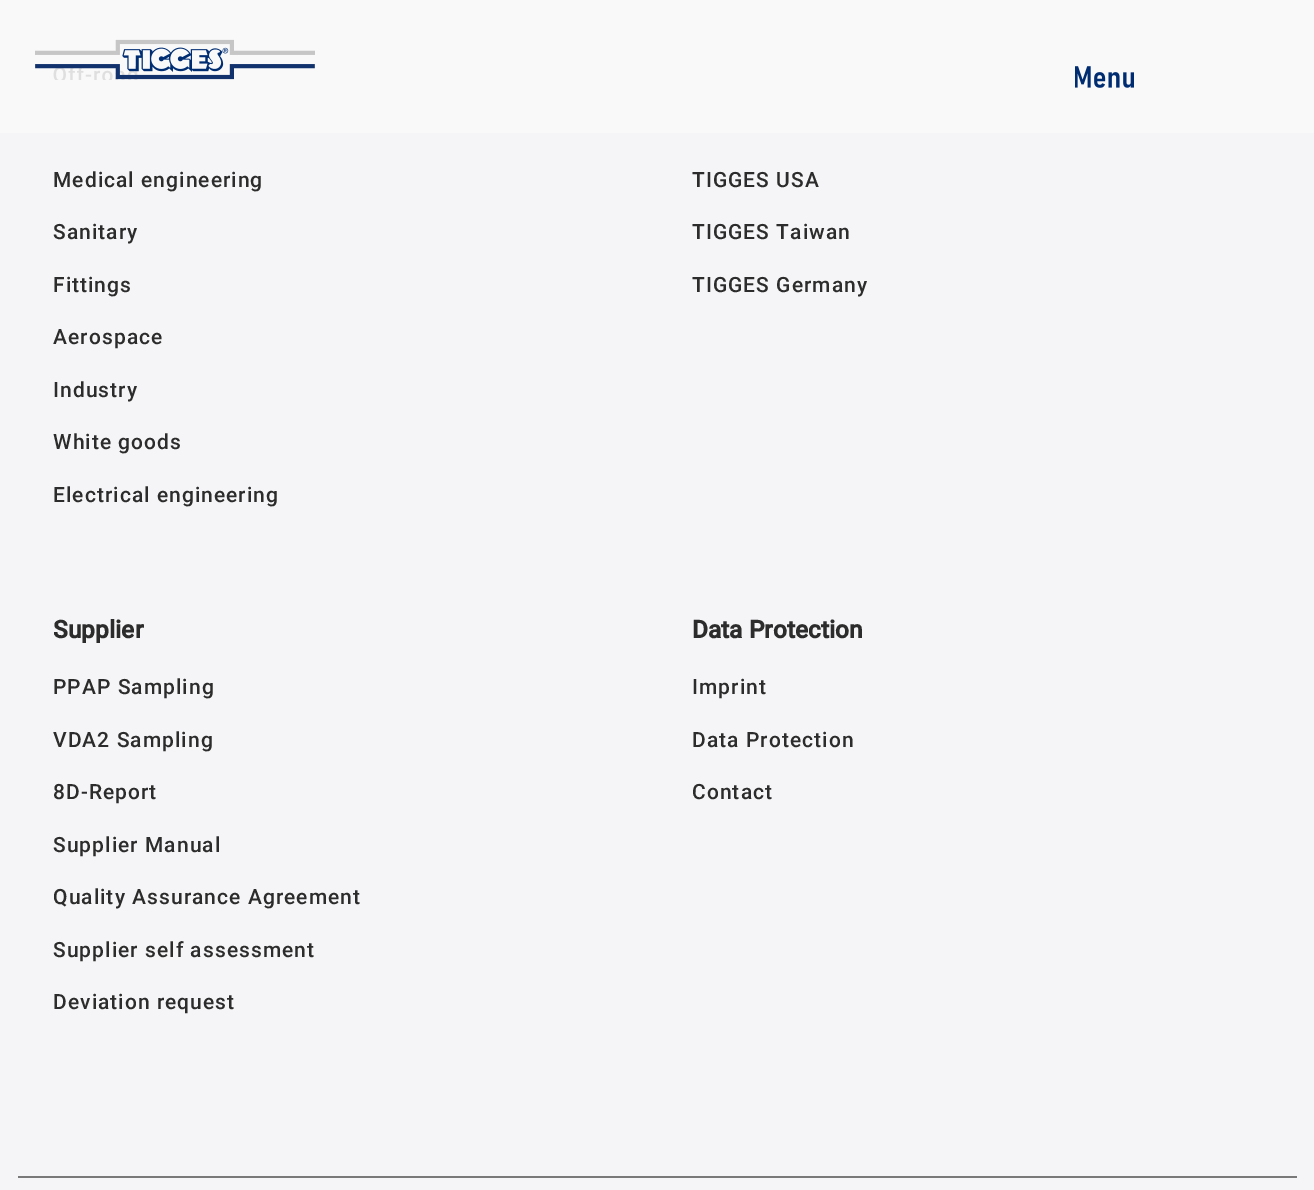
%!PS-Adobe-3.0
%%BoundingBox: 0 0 1314 1190
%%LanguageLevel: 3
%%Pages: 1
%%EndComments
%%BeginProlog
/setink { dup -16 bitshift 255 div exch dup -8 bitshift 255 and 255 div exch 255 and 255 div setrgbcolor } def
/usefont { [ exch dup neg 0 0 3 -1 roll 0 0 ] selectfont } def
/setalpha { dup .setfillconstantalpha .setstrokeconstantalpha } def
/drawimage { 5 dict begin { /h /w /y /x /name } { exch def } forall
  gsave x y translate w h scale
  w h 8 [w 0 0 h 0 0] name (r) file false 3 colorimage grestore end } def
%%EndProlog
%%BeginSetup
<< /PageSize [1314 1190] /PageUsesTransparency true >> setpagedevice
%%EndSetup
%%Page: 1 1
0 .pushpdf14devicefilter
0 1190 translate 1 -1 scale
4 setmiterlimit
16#F5F5F7 setink
0 0 1314 1190 rectfill
0.87 setalpha
16#FAFAFA setink
0 0 1314 133 rectfill
1 setalpha
(img1.raw) 35 39 280 41 drawimage
(img2.raw) 1075 66 59 22 drawimage
/Roboto-Medium 21 usefont
16#2C2C2C setink
53 187 moveto 1.05 0 (Medical engineering) ashow
53 239 moveto 1.05 0 (Sanitary) ashow
53 292 moveto 1.05 0 (Fittings) ashow
53 344 moveto 1.05 0 (Aerospace) ashow
53 397 moveto 1.05 0 (Industry) ashow
53 449 moveto 1.05 0 (White goods) ashow
53 502 moveto 1.05 0 (Electrical engineering) ashow
692 187 moveto 1.05 0 (TIGGES USA) ashow
692 239 moveto 1.05 0 (TIGGES Taiwan) ashow
692 292 moveto 1.05 0 (TIGGES Germany) ashow
/Roboto-Bold 24.5 usefont
53 638 moveto (Supplier) show
/Roboto-Medium 21 usefont
53 694 moveto 1.05 0 (PPAP Sampling) ashow
53 747 moveto 1.05 0 (VDA2 Sampling) ashow
53 799 moveto 1.05 0 (8D-Report) ashow
53 852 moveto 1.05 0 (Supplier Manual) ashow
53 904 moveto 1.05 0 (Quality Assurance Agreement) ashow
53 957 moveto 1.05 0 (Supplier self assessment) ashow
53 1009 moveto 1.05 0 (Deviation request) ashow
/Roboto-Bold 24.5 usefont
692 638 moveto (Data Protection) show
/Roboto-Medium 21 usefont
692 694 moveto 1.05 0 (Imprint) ashow
692 747 moveto 1.05 0 (Data Protection) ashow
692 799 moveto 1.05 0 (Contact) ashow
16#797979 setink
18 1176 1279 2 rectfill
.poppdf14devicefilter showpage
%%EOF
